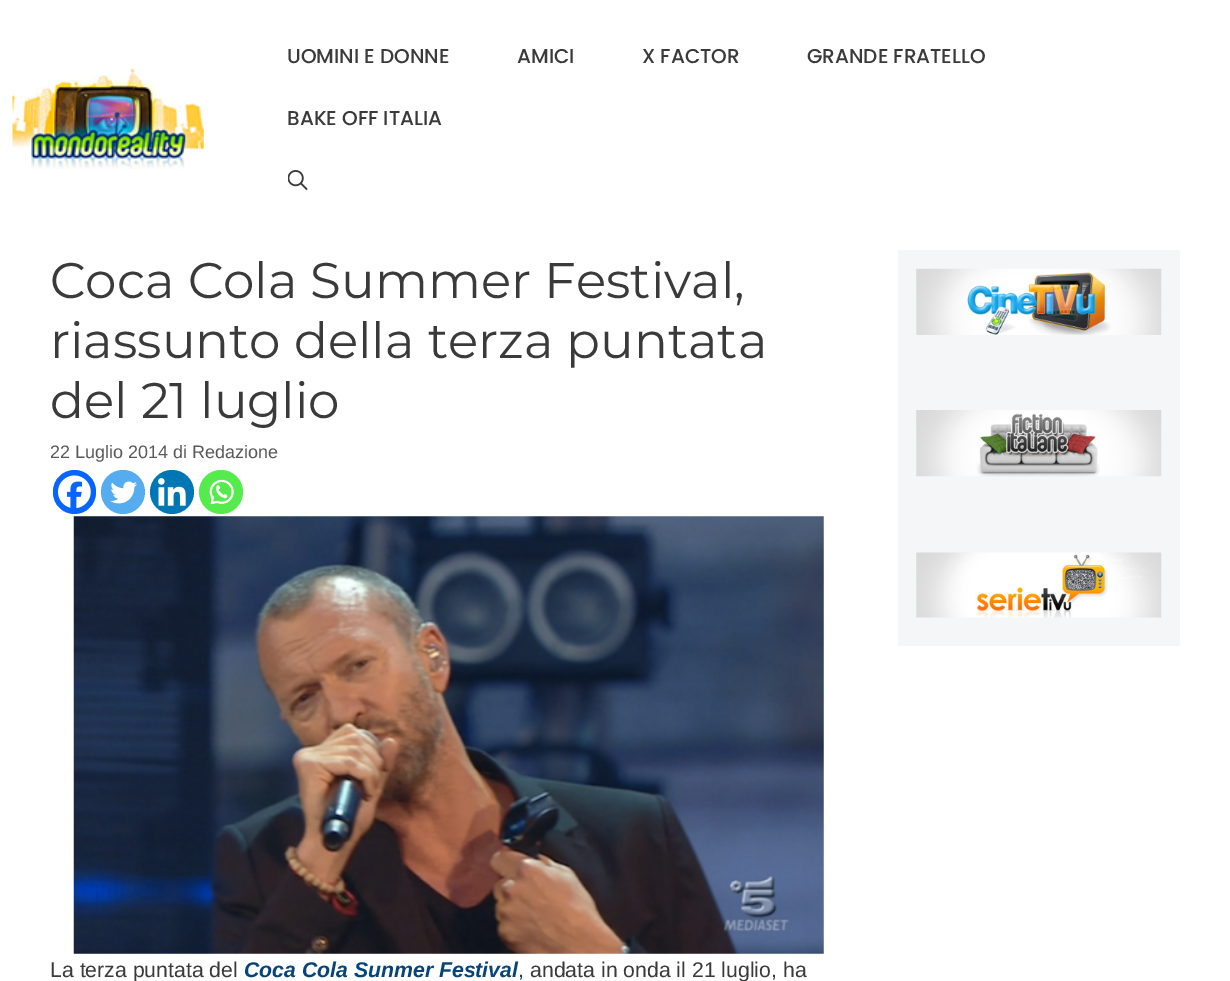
%!PS-Adobe-3.0
%%BoundingBox: 0 0 1230 981
%%LanguageLevel: 3
%%Pages: 1
%%EndComments
%%BeginProlog
/setink { dup -16 bitshift 255 div exch dup -8 bitshift 255 and 255 div exch 255 and 255 div setrgbcolor } def
/usefont { [ exch dup neg 0 0 3 -1 roll 0 0 ] selectfont } def
/disc { newpath 0 360 arc closepath } def
/rrect { 5 dict begin { /r /h /w /y /x } { exch def } forall
  x r add y moveto x w add y 2 copy h add r arct x w add y h add x 1 index r arct
  x y h add x y r arct x y 2 copy exch w add exch r arct closepath end } def
/drawimage { 5 dict begin { /h /w /y /x /name } { exch def } forall
  gsave x y translate w h scale
  w h 8 [w 0 0 h 0 0] name (r) file false 3 colorimage grestore end } def
%%EndProlog
%%BeginSetup
<< /PageSize [1230 981] >> setpagedevice
%%EndSetup
%%Page: 1 1
0 981 translate 1 -1 scale
4 setmiterlimit
16#FFFFFF setink
0 0 1230 981 rectfill
(img1.raw) 12 68 192 101 drawimage
/Poppins-Medium 20 usefont
16#3A3A3A setink
[
    [(UOMINI E DONNE) 287 63]
    [(AMICI) 517 63]
    [(X FACTOR) 642 63]
    [(GRANDE FRATELLO) 807 63]
    [(BAKE OFF ITALIA) 287 125]
] { aload pop moveto show } forall
(img2.raw) 288 170 20 20 drawimage
/Montserrat-Regular 50 usefont
[
    [(Coca Cola Summer Festival,) 50 298]
    [(riassunto della terza puntata) 50 358]
    [(del 21 luglio) 50 418]
] { aload pop moveto show } forall
/LiberationSans-Regular 18 usefont
16#595959 setink
50 458 moveto (22 Luglio 2014 di Redazione) show
16#0765FE setink
53 470 43 44 21.5 rrect fill
(img3.raw) 58 475 33 34 drawimage
16#55ACEE setink
123 492 22 disc fill
(img4.raw) 110 481 27 23 drawimage
16#0077B5 setink
172 492 22 disc fill
(img5.raw) 158 478 28 28 drawimage
16#55EB4C setink
221 492 22 disc fill
(img6.raw) 209 479 25 26 drawimage
(img7.raw) 73 516 751 438 drawimage
/LiberationSans-Regular 21.25 usefont
16#3A3A3A setink
50 977 moveto (La terza puntata del) show
/LiberationSans-BoldItalic 21.25 usefont
16#06447A setink
244 977 moveto (Coca Cola Sunmer Festival) show
/LiberationSans-Regular 21.25 usefont
518 977 moveto (,) show
16#3A3A3A setink
530 977 moveto (andata in onda il 21 luglio, ha) show
16#F4F6F7 setink
898 250 282 396 rectfill
(img8.raw) 916 268 246 67 drawimage
(img9.raw) 916 410 246 67 drawimage
(img10.raw) 916 552 246 66 drawimage
showpage
%%EOF
